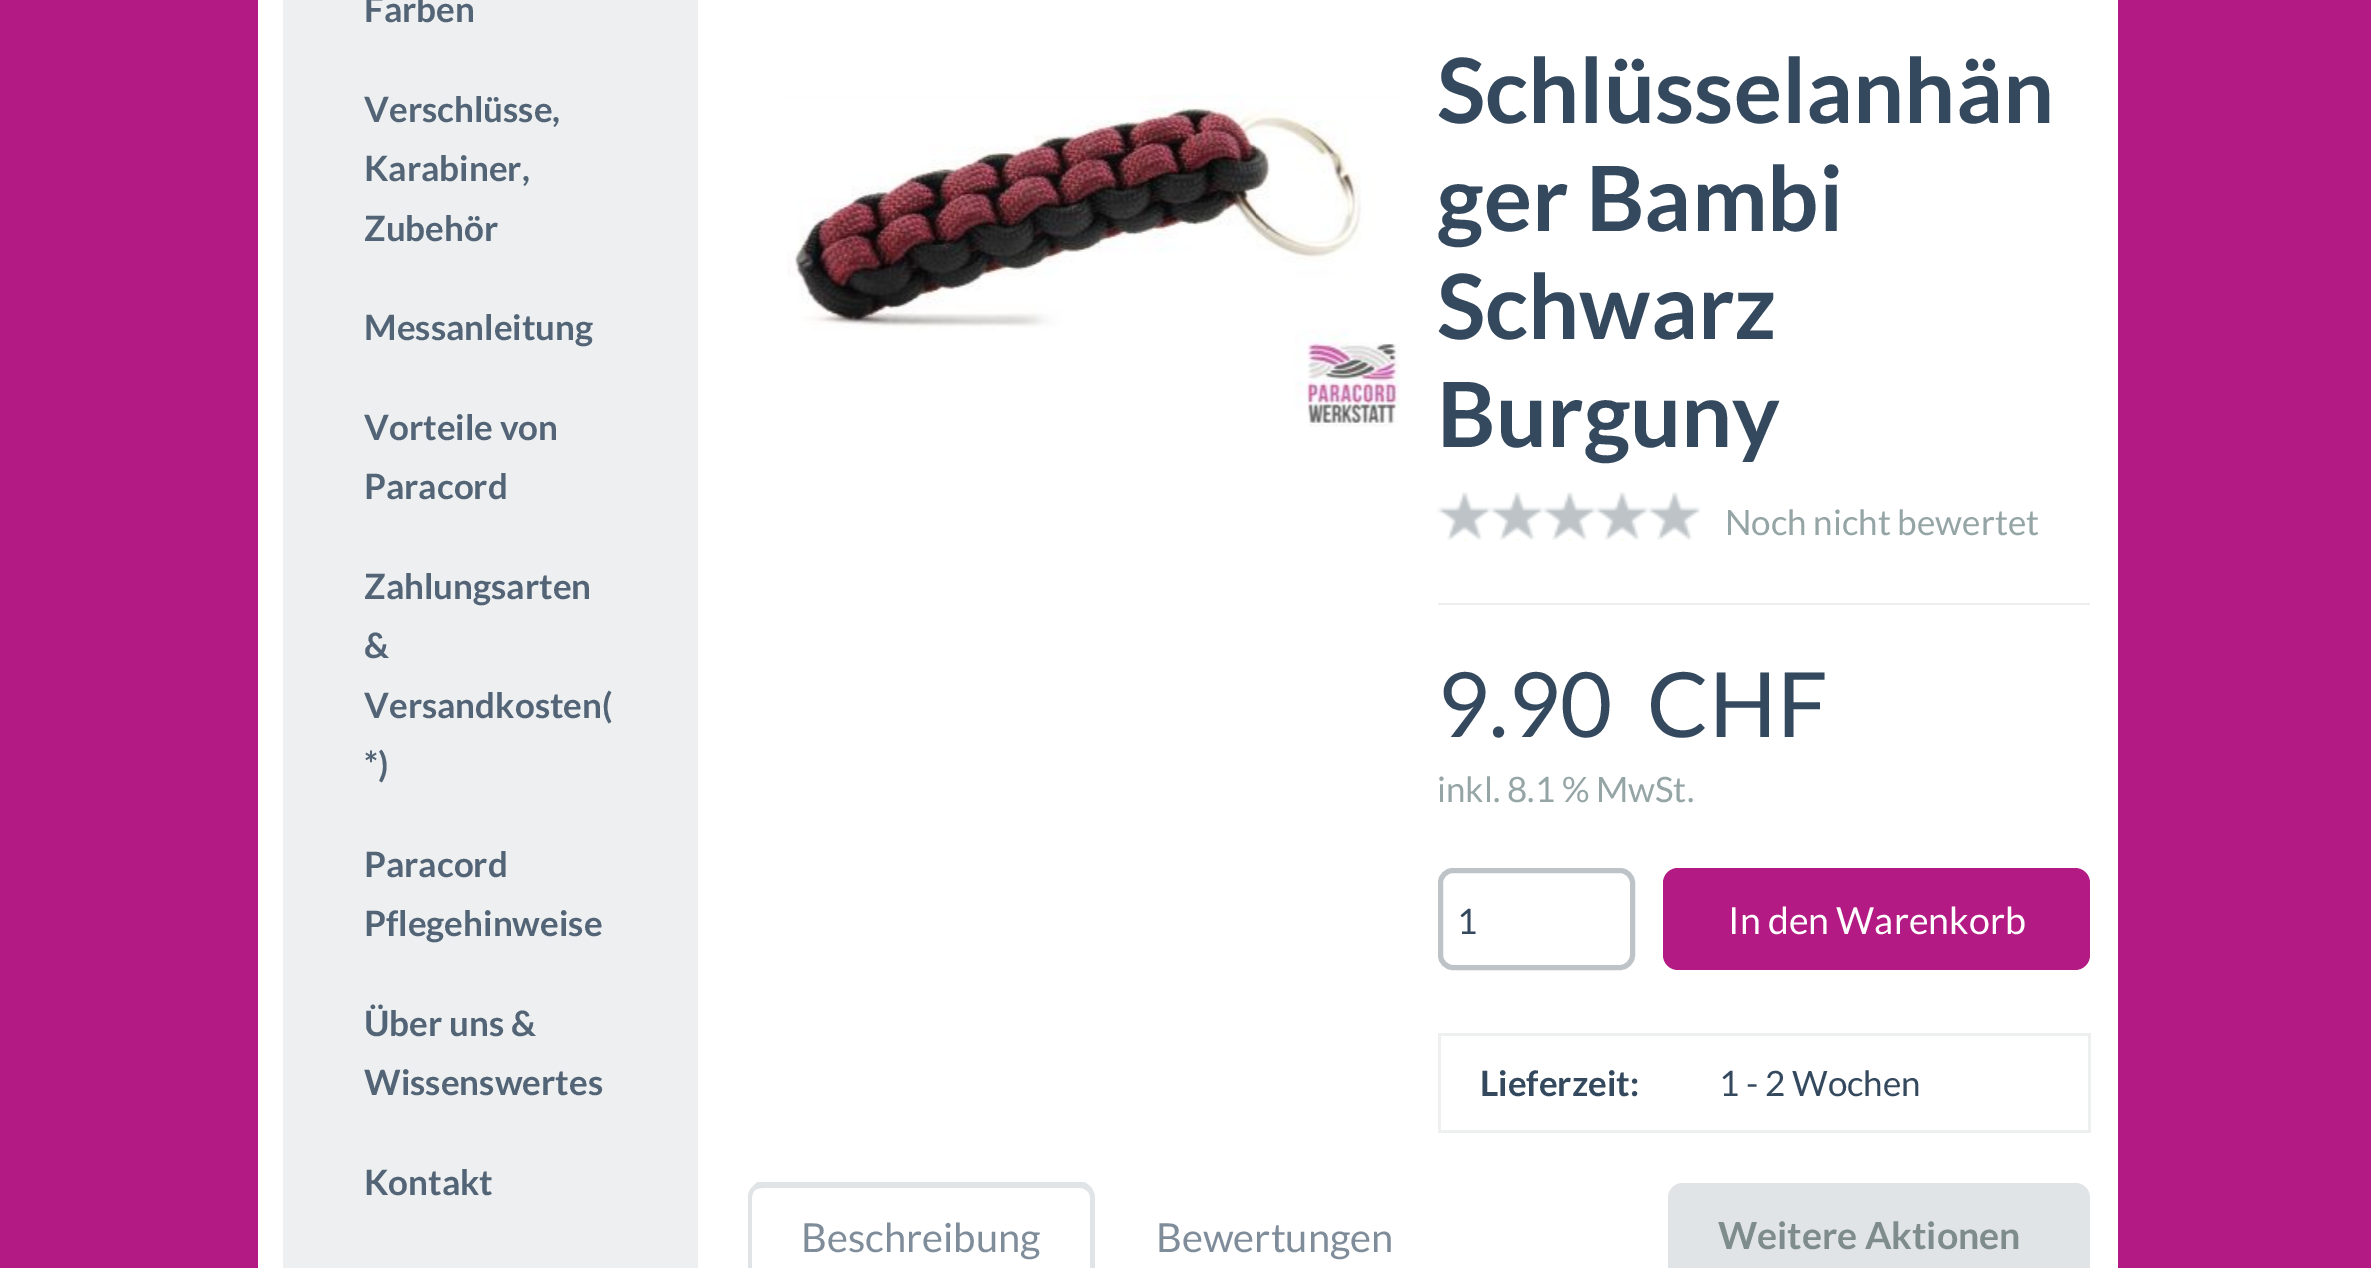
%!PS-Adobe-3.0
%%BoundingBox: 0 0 2371 1268
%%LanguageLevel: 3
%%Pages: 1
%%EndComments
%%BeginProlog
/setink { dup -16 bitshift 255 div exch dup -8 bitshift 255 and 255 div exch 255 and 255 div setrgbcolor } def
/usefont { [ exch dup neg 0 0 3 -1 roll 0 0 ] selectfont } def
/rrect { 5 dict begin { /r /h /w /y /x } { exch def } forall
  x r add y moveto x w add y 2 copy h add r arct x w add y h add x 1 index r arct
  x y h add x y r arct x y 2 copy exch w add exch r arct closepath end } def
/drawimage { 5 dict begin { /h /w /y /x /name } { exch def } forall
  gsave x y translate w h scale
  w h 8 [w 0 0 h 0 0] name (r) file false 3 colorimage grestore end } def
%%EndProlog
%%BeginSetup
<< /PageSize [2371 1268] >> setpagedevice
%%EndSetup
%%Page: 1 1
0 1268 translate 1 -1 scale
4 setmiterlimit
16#B41A83 setink
0 0 2371 1268 rectfill
16#FFFFFF setink
258 0 1860 1268 rectfill
16#EDEFF1 setink
283 0 415 1268 rectfill
/Lato-Bold 35 usefont
16#526476 setink
[
    [(Farben) 364 22]
    [(Verschlüsse,) 364 122]
    [(Karabiner,) 364 181]
    [(Zubehör) 364 241]
    [(Messanleitung) 364 340]
    [(Vorteile von) 364 440]
    [(Paracord) 364 499]
    [(Zahlungsarten) 364 599]
    [(&) 364 658]
    [(Versandkosten\() 364 718]
    [(*\)) 364 777]
    [(Paracord) 364 877]
    [(Pflegehinweise) 364 936]
    [(Über uns &) 364 1036]
    [(Wissenswertes) 364 1095]
    [(Kontakt) 364 1195]
] { aload pop moveto show } forall
(img1.raw) 787 95 613 332 drawimage
/Lato-Bold 90 usefont
16#34495E setink
[
    [(Schlüsselanhän) 1437 123]
    [(ger Bambi) 1437 231]
    [(Schwarz) 1437 339]
    [(Burguny) 1437 447]
] { aload pop moveto show } forall
(img2.raw) 1437 492 263 48 drawimage
/Lato-Regular 35 usefont
16#95A5A6 setink
1725 535 moveto (Noch nicht bewertet) show
16#EEEEEE setink
1438 603 652 2 rectfill
/Lato-Regular 90 usefont
16#34495E setink
1437 737 moveto (9.90  CHF) show
/Lato-Regular 35 usefont
16#95A5A6 setink
1437 802 moveto (inkl. 8.1 % MwSt.) show
16#BDC3C7 setink
5 setlinewidth
1440.5 870.5 192 97 12.5 rrect stroke
16#34495E setink
1457 934 moveto (1) show
16#B41A83 setink
1663 868 427 102 15 rrect fill
/Lato-Regular 37.5 usefont
16#FFFFFF setink
1728 934 moveto (In den Warenkorb) show
[
    [1438 1033 652 3 16#EEF0F0]
    [2088 1033 3 100 16#EEF0F0]
    [1438 1130 652 3 16#EEF0F0]
    [1438 1033 3 100 16#EEF0F0]
] { aload pop setink rectfill } forall
/Lato-Bold 35 usefont
16#34495E setink
1480 1096 moveto (Lieferzeit:) show
/Lato-Regular 35 usefont
1719 1096 moveto (1 - 2 Wochen) show
16#E1E4E7 setink
762 1188 moveto 760 1188 757 1189 755 1190 curveto 752 1187 lineto 754 1185 756 1183 758 1182 curveto 1084 1182 lineto 1086 1183 1089 1185 1091 1187 curveto 1087 1191 lineto 1085 1189 1083 1188 1080 1188 curveto closepath fill
1095 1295 moveto 1095 1198 lineto 1095 1194 1093 1190 1091 1187 curveto 1087 1191 lineto 1089 1192 1090 1195 1090 1198 curveto 1090 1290 lineto closepath fill
748 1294 moveto 748 1198 lineto 748 1194 749 1190 752 1187 curveto 755 1190 lineto 753 1192 752 1195 752 1198 curveto 752 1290 lineto closepath fill
/Lato-Regular 40 usefont
16#7F8C9A setink
801 1252 moveto (Beschreibung) show
1156 1252 moveto (Bewertungen) show
16#E1E4E7 setink
1683 1183 moveto 2075 1183 lineto 2083.5 1183 2090 1189.5 2090 1198 curveto 2090 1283 lineto 1668 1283 lineto 1668 1198 lineto 1668 1189.5 1674.5 1183 1683 1183 curveto closepath fill
/Lato-Bold 37.5 usefont
16#7F8C8D setink
1718 1249 moveto (Weitere Aktionen) show
showpage
%%EOF
